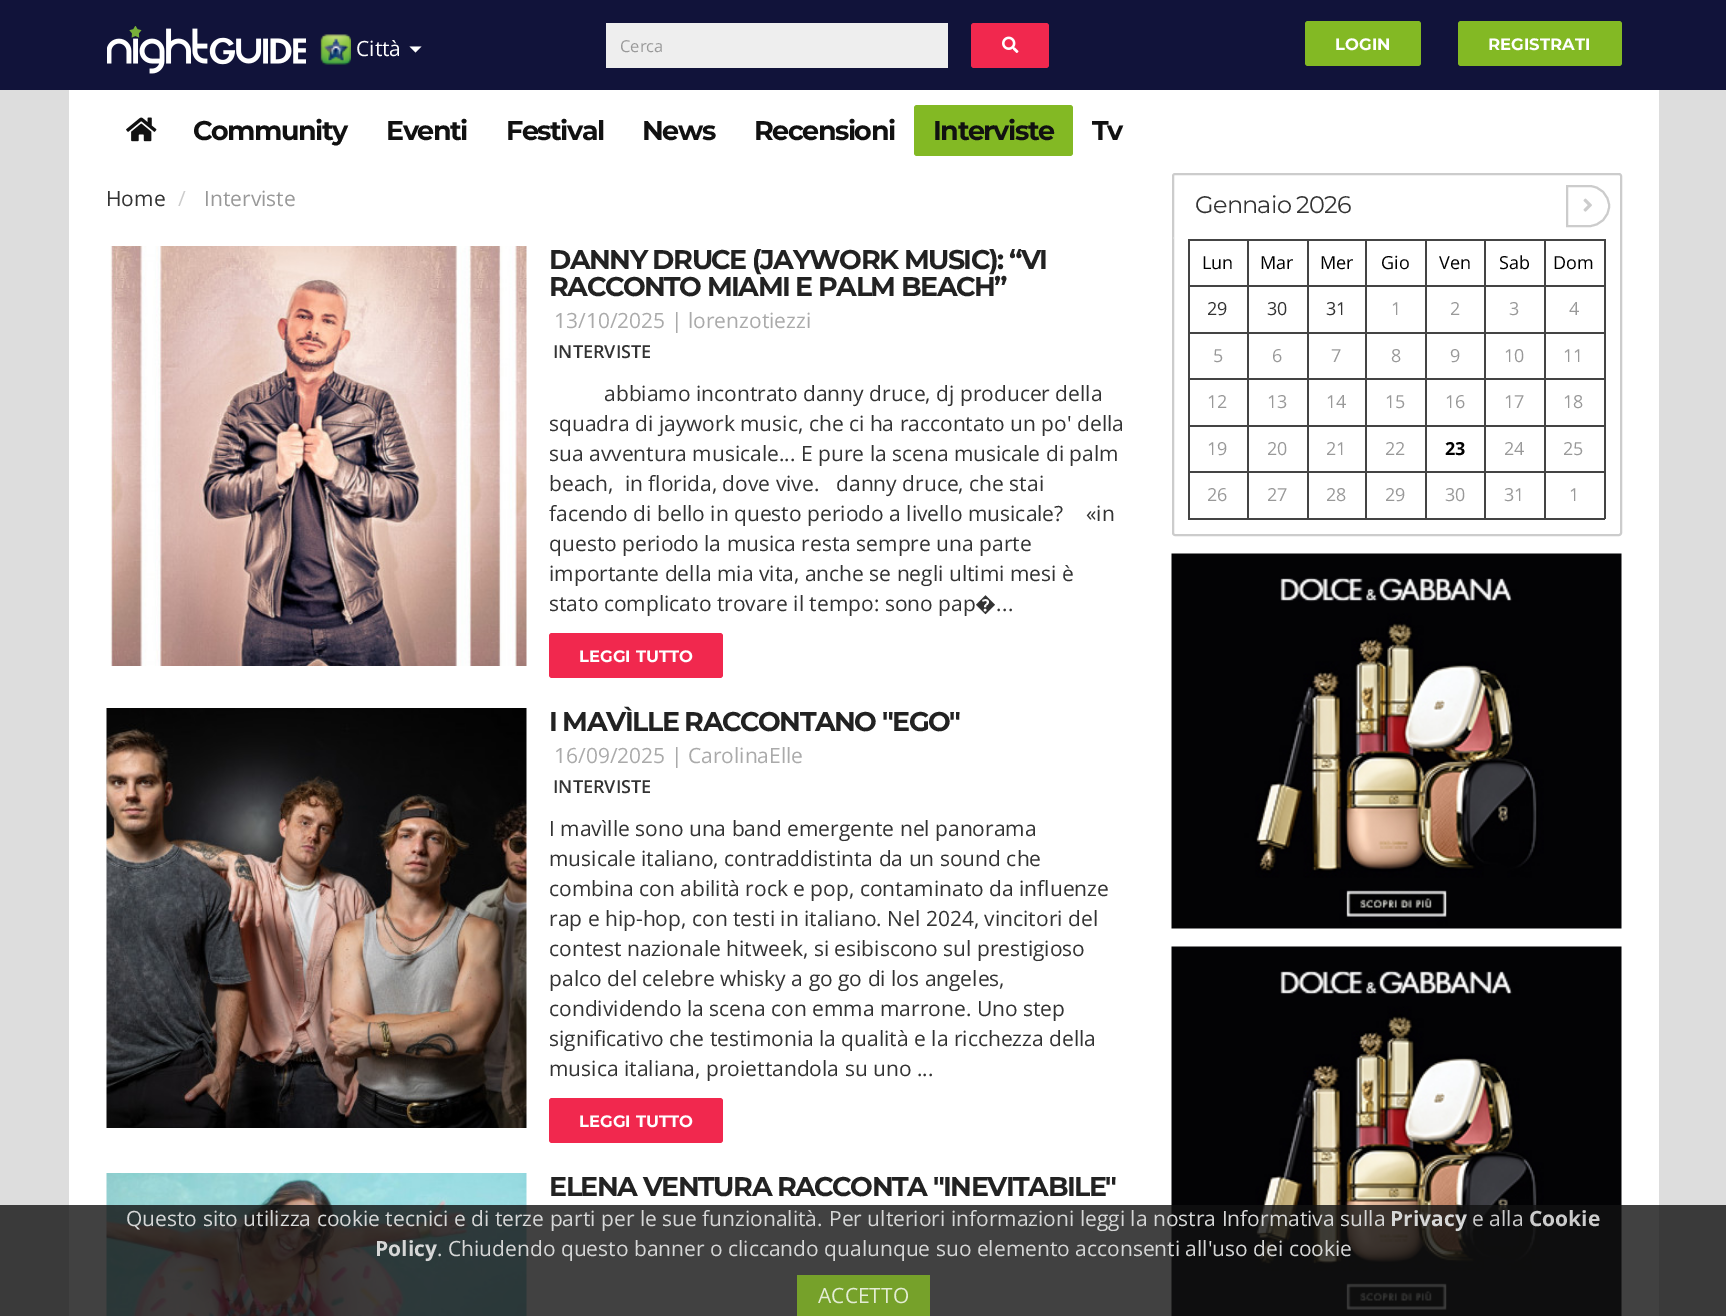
%!PS-Adobe-3.0
%%BoundingBox: 0 0 1726 1316
%%LanguageLevel: 3
%%Pages: 1
%%EndComments
%%BeginProlog
/setink { dup -16 bitshift 255 div exch dup -8 bitshift 255 and 255 div exch 255 and 255 div setrgbcolor } def
/usefont { [ exch dup neg 0 0 3 -1 roll 0 0 ] selectfont } def
/setalpha { dup .setfillconstantalpha .setstrokeconstantalpha } def
/rrect { 5 dict begin { /r /h /w /y /x } { exch def } forall
  x r add y moveto x w add y 2 copy h add r arct x w add y h add x 1 index r arct
  x y h add x y r arct x y 2 copy exch w add exch r arct closepath end } def
/drawimage { 5 dict begin { /h /w /y /x /name } { exch def } forall
  gsave x y translate w h scale
  w h 8 [w 0 0 h 0 0] name (r) file false 3 colorimage grestore end } def
%%EndProlog
%%BeginSetup
<< /PageSize [1726 1316] /PageUsesTransparency true >> setpagedevice
%%EndSetup
%%Page: 1 1
0 .pushpdf14devicefilter
0 1316 translate 1 -1 scale
4 setmiterlimit
16#DDDDDD setink
0 0 1726 1316 rectfill
16#11133A setink
0 0 1726 90 rectfill
(img1.raw) 107 26 199 48 drawimage
(img2.raw) 320 34 31 31 drawimage
/OpenSans-Regular 21 usefont
16#FFFFFF setink
356 56 moveto (Città) show
409.5 46.5 moveto 421.5 46.5 lineto 415.5 52.5 lineto closepath fill
16#EEEEEE setink
606 23 342 45 rectfill
/OpenSans-Regular 16.5 usefont
16#999999 setink
620 52 moveto (Cerca) show
16#F1284E setink
971 23 78 45 3 rrect fill
(img3.raw) 1002 36 17 17 drawimage
16#83B924 setink
1305 21 116 45 3 rrect fill
/Montserrat-Bold 16.5 usefont
16#FFFFFF setink
1335 50 moveto (LOGIN) show
16#83B924 setink
1458 21 164 45 3 rrect fill
16#FFFFFF setink
1488 50 moveto (REGISTRATI) show
69 90 1590 1226 rectfill
(img4.raw) 126 117 31 25 drawimage
/Montserrat-Bold 27 usefont
16#111111 setink
193 140 moveto -1.5 0 (Community) ashow
386 140 moveto -1.5 0 (Eventi) ashow
506 140 moveto -1.5 0 (Festival) ashow
642 140 moveto -1.5 0 (News) ashow
754 140 moveto -1.5 0 (Recensioni) ashow
16#83B924 setink
914 105 159 51 3 rrect fill
16#111111 setink
933 140 moveto -1.5 0 (Interviste) ashow
1092 140 moveto -1.5 0 (Tv) ashow
/OpenSans-Regular 21 usefont
16#333333 setink
106 206 moveto (Home) show
16#CCCCCC setink
178 206 moveto (/) show
16#999999 setink
204 206 moveto (Interviste) show
(img5.raw) 110 246 417 420 drawimage
/Montserrat-Bold 27 usefont
16#222222 setink
549 269 moveto -1.5 0 (DANNY DRUCE \(JAYWORK MUSIC\): “VI) ashow
549 296 moveto -1.5 0 (RACCONTO MIAMI E PALM BEACH”) ashow
/OpenSans-Regular 21 usefont
16#AAAAAA setink
554 328 moveto (13/10/2025 | lorenzotiezzi) show
/OpenSans-SemiBold 18 usefont
16#333333 setink
553 358 moveto (INTERVISTE) show
/OpenSans-Regular 21 usefont
[
    [(abbiamo incontrato danny druce, dj producer della) 604 401]
    [(squadra di jaywork music, che ci ha raccontato un po' della) 549 431]
    [(sua avventura musicale... E pure la scena musicale di palm) 549 461]
    [(beach,  in florida, dove vive.) 549 491]
    [(danny druce, che stai) 836 491]
    [(facendo di bello in questo periodo a livello musicale?) 549 521]
    [(«in) 1086 521]
    [(questo periodo la musica resta sempre una parte) 549 551]
    [(importante della mia vita, anche se negli ultimi mesi è) 549 581]
    [(stato complicato trovare il tempo: sono pap�...) 549 611]
] { aload pop moveto show } forall
16#F1284E setink
549 633 174 45 3 rrect fill
/Montserrat-Bold 16.5 usefont
16#FFFFFF setink
579 662 moveto (LEGGI TUTTO) show
(img6.raw) 106 708 421 420 drawimage
/Montserrat-Bold 27 usefont
16#222222 setink
549 731 moveto -1.5 0 (I MAVÌLLE RACCONTANO "EGO") ashow
/OpenSans-Regular 21 usefont
16#AAAAAA setink
554 763 moveto (16/09/2025 | CarolinaElle) show
/OpenSans-SemiBold 18 usefont
16#333333 setink
553 793 moveto (INTERVISTE) show
/OpenSans-Regular 21 usefont
[
    [(I mavìlle sono una band emergente nel panorama) 549 836]
    [(musicale italiano, contraddistinta da un sound che) 549 866]
    [(combina con abilità rock e pop, contaminato da influenze) 549 896]
    [(rap e hip-hop, con testi in italiano. Nel 2024, vincitori del) 549 926]
    [(contest nazionale hitweek, si esibiscono sul prestigioso) 549 956]
    [(palco del celebre whisky a go go di los angeles,) 549 986]
    [(condividendo la scena con emma marrone. Uno step) 549 1016]
    [(significativo che testimonia la qualità e la ricchezza della) 549 1046]
    [(musica italiana, proiettandola su uno ...) 549 1076]
] { aload pop moveto show } forall
16#F1284E setink
549 1098 174 45 3 rrect fill
/Montserrat-Bold 16.5 usefont
16#FFFFFF setink
579 1127 moveto (LEGGI TUTTO) show
(img7.raw) 106 1173 421 143 drawimage
/Montserrat-Bold 27 usefont
16#222222 setink
549 1196 moveto -1.5 0 (ELENA VENTURA RACCONTA "INEVITABILE") ashow
16#CCCCCC setink
2 setlinewidth
1173 174 448 361 2 rrect stroke
0.2 setalpha
16#FFFFFF setink
1173 237 1 2 rectfill
/Montserrat-Regular 24 usefont
1 setalpha
16#333333 setink
1195 213 moveto -0.75 0 (Gennaio 2026) ashow
16#CCCCCC setink
1567 186 moveto 1589 186 lineto 1600 186 1609 195 1609 206 curveto 1609 217 1600 226 1589 226 curveto 1567 226 lineto closepath stroke
(img8.raw) 1583 198 9 14 drawimage
[
    [1188 239 417 2 16#444444]
    [1188 239 2 280 16#444444]
    [1188 285 417 2 16#444444]
] { aload pop setink rectfill } forall
/OpenSans-Regular 18 usefont
16#000000 setink
[
    [(Lun) 1202 269]
    [(Mar) 1260 269]
    [(Mer) 1320 269]
    [(Gio) 1381 269]
    [(Ven) 1439 269]
    [(Sab) 1499 269]
    [(Dom) 1553 269]
] { aload pop moveto show } forall
16#444444 setink
1188 332 417 2 rectfill
16#333333 setink
[
    [(29) 1207 315]
    [(30) 1267 315]
    [(31) 1326 315]
] { aload pop moveto show } forall
16#999999 setink
[
    [(1) 1391 315]
    [(2) 1450 315]
    [(3) 1509 315]
    [(4) 1569 315]
] { aload pop moveto show } forall
16#444444 setink
1188 378 417 2 rectfill
16#999999 setink
[
    [(5) 1213 362]
    [(6) 1272 362]
    [(7) 1331 362]
    [(8) 1391 362]
    [(9) 1450 362]
    [(10) 1504 362]
    [(11) 1563 362]
] { aload pop moveto show } forall
16#444444 setink
1188 425 417 2 rectfill
16#999999 setink
[
    [(12) 1207 408]
    [(13) 1267 408]
    [(14) 1326 408]
    [(15) 1385 408]
    [(16) 1445 408]
    [(17) 1504 408]
    [(18) 1563 408]
] { aload pop moveto show } forall
16#444444 setink
1188 471 417 2 rectfill
16#999999 setink
[
    [(19) 1207 455]
    [(20) 1267 455]
    [(21) 1326 455]
    [(22) 1385 455]
] { aload pop moveto show } forall
/OpenSans-Bold 18 usefont
16#000000 setink
1445 455 moveto (23) show
/OpenSans-Regular 18 usefont
16#999999 setink
[
    [(24) 1504 455]
    [(25) 1563 455]
    [(26) 1207 501]
] { aload pop moveto show } forall
16#444444 setink
1188 518 417 2 rectfill
1247 239 2 280 rectfill
16#999999 setink
1267 501 moveto (27) show
16#444444 setink
1307 239 2 280 rectfill
16#999999 setink
1326 501 moveto (28) show
16#444444 setink
1365 239 2 280 rectfill
16#999999 setink
1385 501 moveto (29) show
16#444444 setink
1425 239 2 280 rectfill
16#999999 setink
1445 501 moveto (30) show
16#444444 setink
1484 239 2 280 rectfill
16#999999 setink
1504 501 moveto (31) show
16#444444 setink
1604 239 2 280 rectfill
1544 239 2 280 rectfill
16#999999 setink
1569 501 moveto (1) show
(img9.raw) 1171 553 451 376 drawimage
(img10.raw) 1171 946 451 370 drawimage
0.8 setalpha
16#111111 setink
0 1205 1726 111 rectfill
/OpenSans-Regular 21 usefont
1 setalpha
16#D6D7D7 setink
126 1226 moveto (Questo sito utilizza cookie tecnici e di terze parti per le sue funzionalità.) show
829 1226 moveto (Per ulteriori informazioni leggi la nostra Informativa sulla) show
/OpenSans-Bold 21 usefont
1390 1226 moveto (Privacy) show
/OpenSans-Regular 21 usefont
16#CCCCCC setink
1472 1226 moveto (e alla) show
/OpenSans-Bold 21 usefont
1529 1226 moveto (Cookie) show
16#D6D7D7 setink
375 1256 moveto (Policy) show
/OpenSans-Regular 21 usefont
437 1256 moveto (.) show
448 1256 moveto (Chiudendo questo banner o cliccando qualunque suo elemento acconsenti all'uso dei cookie) show
0.8 setalpha
16#83B924 setink
797 1275 133 41 rectfill
1 setalpha
16#E3ECD4 setink
818 1303 moveto (ACCETTO) show
.poppdf14devicefilter showpage
%%EOF
